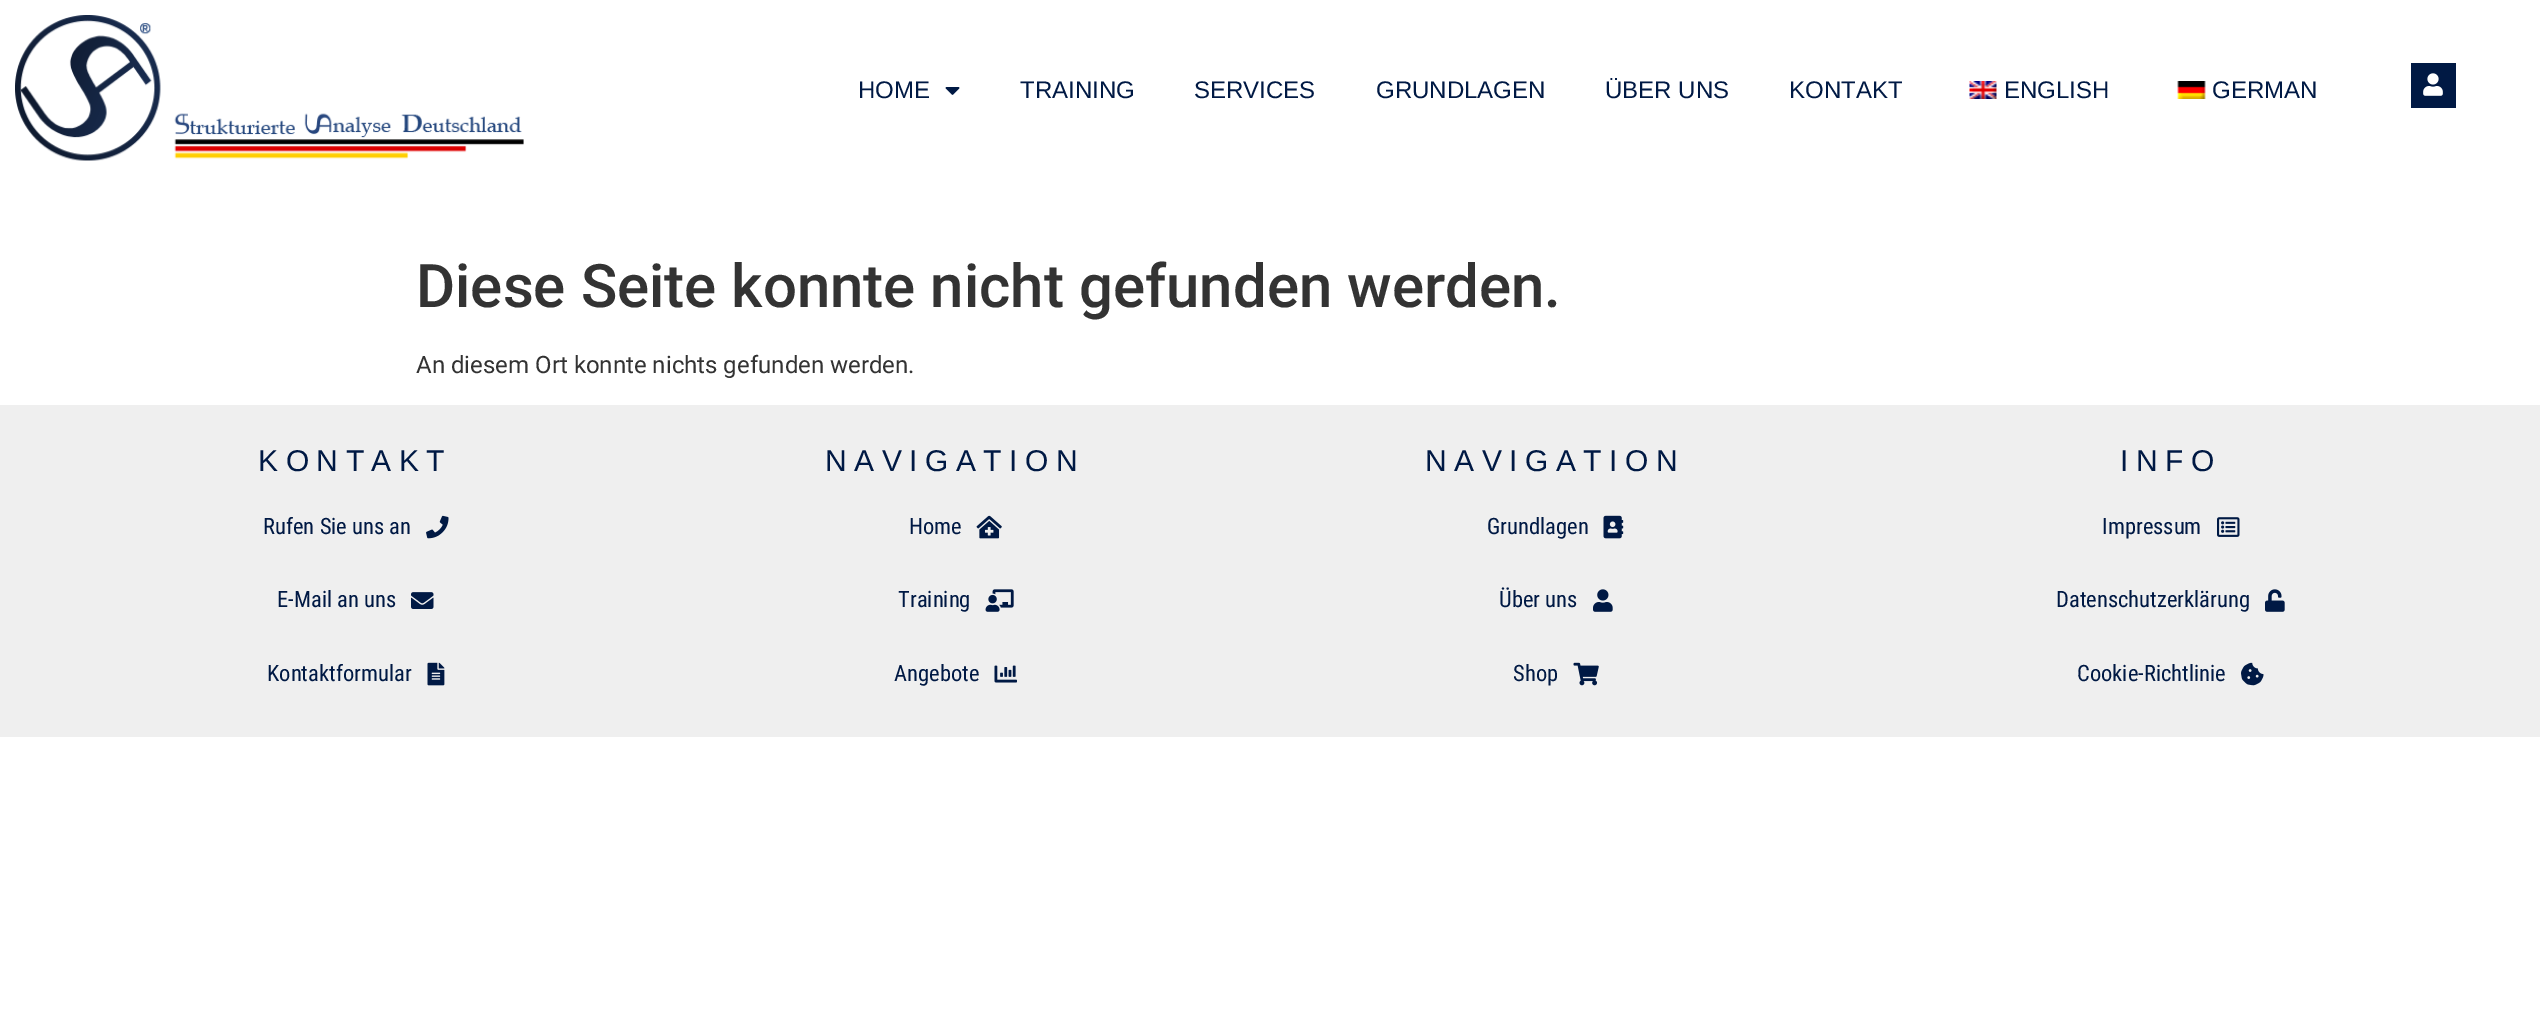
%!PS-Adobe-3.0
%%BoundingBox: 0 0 2540 1031
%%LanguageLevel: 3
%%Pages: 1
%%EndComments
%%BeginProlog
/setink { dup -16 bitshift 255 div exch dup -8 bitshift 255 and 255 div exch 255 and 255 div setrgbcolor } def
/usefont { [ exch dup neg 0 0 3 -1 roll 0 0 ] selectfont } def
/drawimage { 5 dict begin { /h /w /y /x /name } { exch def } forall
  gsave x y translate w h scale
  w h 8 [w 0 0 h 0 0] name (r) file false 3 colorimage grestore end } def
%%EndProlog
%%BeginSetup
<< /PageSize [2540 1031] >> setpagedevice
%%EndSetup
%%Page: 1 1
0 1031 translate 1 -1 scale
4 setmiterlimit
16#FFFFFF setink
0 0 2540 1031 rectfill
(img1.raw) 15 15 509 146 drawimage
/LiberationSans-Regular 24 usefont
16#001944 setink
858 98 moveto (HOME) show
(img2.raw) 945 87 15 8 drawimage
[
    [(TRAINING) 1020 98]
    [(SERVICES) 1194 98]
    [(GRUNDLAGEN) 1376 98]
    [(ÜBER UNS) 1605 98]
    [(KONTAKT) 1789 98]
] { aload pop moveto show } forall
(img3.raw) 1969 81 28 18 drawimage
2004 98 moveto (ENGLISH) show
(img4.raw) 2177 81 29 18 drawimage
2212 98 moveto (GERMAN) show
2411 63 45 45 rectfill
(img5.raw) 2423 73 20 23 drawimage
/Roboto-Medium 60 usefont
16#333333 setink
416 307 moveto (Diese Seite konnte nicht gefunden werden.) show
/Roboto-Regular 24 usefont
416 373 moveto (An diesem Ort konnte nichts gefunden werden.) show
16#EFEFEF setink
0 405 2540 332 rectfill
/LiberationSans-Regular 30 usefont
16#001944 setink
258 471 moveto 7.5 0 (KONTAKT) ashow
/RobotoCondensed-Regular 22.5 usefont
263 534 moveto (Rufen Sie uns an) show
(img6.raw) 426 515 23 24 drawimage
277 607 moveto (E-Mail an uns) show
(img7.raw) 411 592 23 17 drawimage
267 681 moveto (Kontaktformular) show
(img8.raw) 427 662 18 24 drawimage
/LiberationSans-Regular 30 usefont
825 471 moveto 7.5 0 (NAVIGATION) ashow
/RobotoCondensed-Regular 22.5 usefont
909 534 moveto (Home) show
(img9.raw) 976 515 26 24 drawimage
898 607 moveto (Training) show
(img10.raw) 985 589 29 23 drawimage
894 681 moveto (Angebote) show
(img11.raw) 994 665 23 18 drawimage
/LiberationSans-Regular 30 usefont
1425 471 moveto 7.5 0 (NAVIGATION) ashow
/RobotoCondensed-Regular 22.5 usefont
1487 534 moveto (Grundlagen) show
(img12.raw) 1603 515 21 24 drawimage
1499 607 moveto (Über uns) show
(img13.raw) 1593 589 20 23 drawimage
1513 681 moveto (Shop) show
(img14.raw) 1573 662 26 24 drawimage
/LiberationSans-Regular 30 usefont
2120 471 moveto 7.5 0 (INFO) ashow
/RobotoCondensed-Regular 22.5 usefont
2102 534 moveto (Impressum) show
(img15.raw) 2217 517 23 20 drawimage
2056 607 moveto (Datenschutzerklärung) show
(img16.raw) 2265 589 20 23 drawimage
2077 681 moveto (Cookie-Richtlinie) show
(img17.raw) 2241 662 23 24 drawimage
showpage
%%EOF
